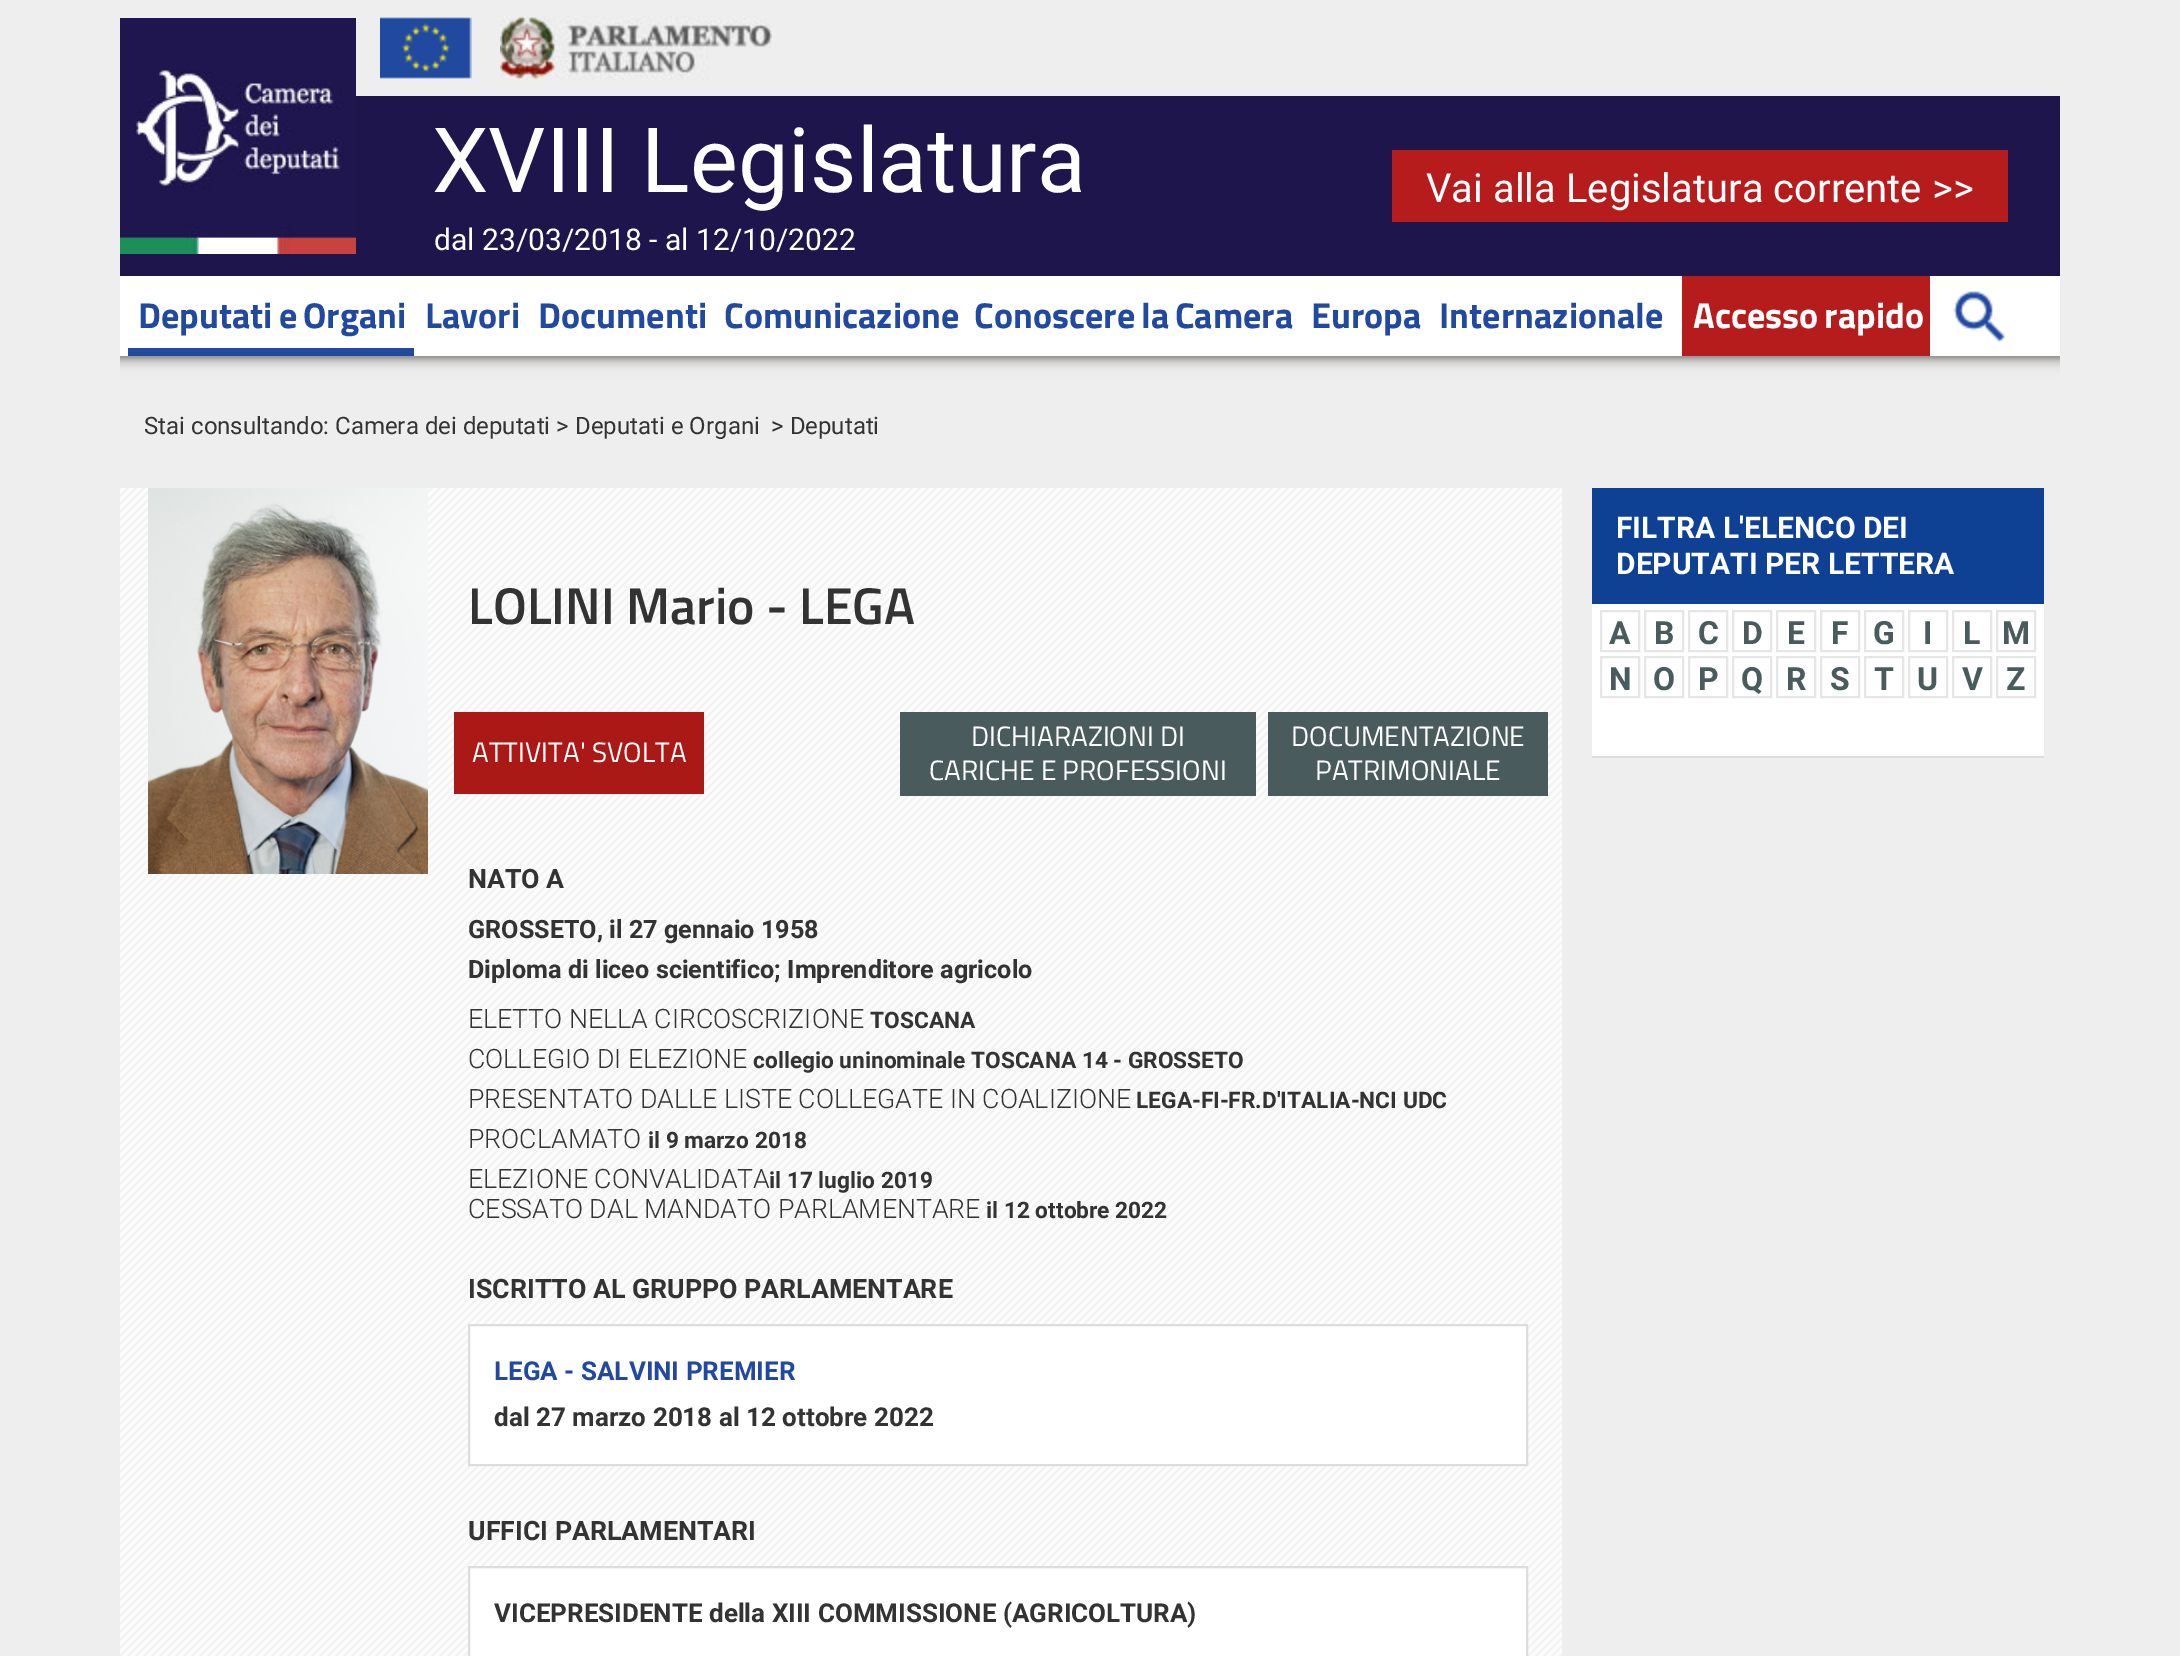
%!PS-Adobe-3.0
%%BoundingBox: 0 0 2180 1656
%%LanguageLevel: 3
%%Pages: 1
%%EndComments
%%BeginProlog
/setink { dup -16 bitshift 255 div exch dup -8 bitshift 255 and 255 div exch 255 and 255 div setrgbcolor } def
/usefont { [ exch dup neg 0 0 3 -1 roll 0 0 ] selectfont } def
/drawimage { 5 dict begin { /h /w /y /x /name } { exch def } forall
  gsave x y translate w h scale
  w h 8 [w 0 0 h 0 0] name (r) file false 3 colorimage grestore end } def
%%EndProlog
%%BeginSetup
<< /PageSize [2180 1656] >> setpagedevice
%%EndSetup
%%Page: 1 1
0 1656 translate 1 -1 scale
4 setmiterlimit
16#EEEEEE setink
0 0 2180 1656 rectfill
16#1E154D setink
120 96 1940 180 rectfill
(img1.raw) 120 18 236 236 drawimage
(img2.raw) 380 17 92 62 drawimage
(img3.raw) 500 15 272 65 drawimage
/Roboto-Regular 90 usefont
16#FFFFFF setink
432 192 moveto (XVIII Legislatura) show
16#B71C1C setink
1392 150 616 72 rectfill
/Roboto-Regular 40 usefont
16#FFFFFF setink
1426 202 moveto (Vai alla Legislatura corrente >>) show
/Roboto-Regular 30 usefont
434 250 moveto (dal 23/03/2018 - al 12/10/2022) show
120 276 1940 80 rectfill
(img4.raw) 120 356 1940 32 drawimage
16#21499F setink
128 348 286 8 rectfill
/TitilliumWeb-Bold 36 usefont
138 328 moveto -2 0 32 (Deputati e Organi) widthshow
[
    [(Lavori) 425 328]
    [(Documenti) 538 328]
    [(Comunicazione) 724 328]
] { aload pop moveto show } forall
974 328 moveto -2 0 32 (Conoscere la Camera) widthshow
1311 328 moveto (Europa) show
1439 328 moveto (Internazionale) show
16#B71C1C setink
1682 276 248 80 rectfill
16#FFFFFF setink
1693 328 moveto -2 0 32 (Accesso rapido) widthshow
(img5.raw) 1953 291 52 52 drawimage
/Roboto-Regular 24 usefont
16#333333 setink
[
    [(Stai consultando:) 144 434]
    [(Camera dei deputati) 335 434]
    [(>) 556 434]
    [(Deputati e Organi) 575 434]
    [(> Deputati) 771 434]
] { aload pop moveto show } forall
(img6.raw) 120 488 1442 1168 drawimage
/TitilliumWeb-SemiBold 51.75 usefont
468 624 moveto (LOLINI Mario - LEGA) show
/Roboto-Bold 26.7 usefont
468 888 moveto (NATO A) show
/Roboto-Bold 25.2 usefont
468 938 moveto (GROSSETO, il 27 gennaio 1958) show
468 978 moveto (Diploma di liceo scientifico; Imprenditore agricolo) show
/Roboto-Light 26.7 usefont
468 1028 moveto (ELETTO NELLA CIRCOSCRIZIONE) show
/Roboto-Bold 22.7 usefont
870 1028 moveto (TOSCANA) show
/Roboto-Light 26.7 usefont
468 1068 moveto (COLLEGIO DI ELEZIONE) show
/Roboto-Bold 22.7 usefont
753 1068 moveto (collegio uninominale TOSCANA 14 - GROSSETO) show
/Roboto-Light 26.7 usefont
468 1108 moveto (PRESENTATO DALLE LISTE COLLEGATE IN COALIZIONE) show
/Roboto-Bold 22.7 usefont
1136 1108 moveto (LEGA-FI-FR.D'ITALIA-NCI UDC) show
/Roboto-Light 26.7 usefont
468 1148 moveto (PROCLAMATO) show
/Roboto-Bold 22.7 usefont
648 1148 moveto (il 9 marzo 2018) show
/Roboto-Light 26.7 usefont
468 1188 moveto (ELEZIONE CONVALIDATA) show
/Roboto-Bold 22.7 usefont
769 1188 moveto (il 17 luglio 2019) show
/Roboto-Light 26.7 usefont
468 1218 moveto (CESSATO DAL MANDATO PARLAMENTARE) show
/Roboto-Bold 22.7 usefont
986 1218 moveto (il 12 ottobre 2022) show
/Roboto-Bold 26.7 usefont
468 1298 moveto (ISCRITTO AL GRUPPO PARLAMENTARE) show
16#FFFFFF setink
469 1325 moveto 1527 1325 lineto 1527 1465 lineto 469 1465 lineto closepath gsave fill grestore
16#DDDDDD setink
2 setlinewidth
stroke
/Roboto-Bold 26 usefont
16#21499F setink
494 1380 moveto (LEGA - SALVINI PREMIER) show
16#333333 setink
494 1426 moveto (dal 27 marzo 2018 al 12 ottobre 2022) show
/Roboto-Bold 26.7 usefont
468 1540 moveto (UFFICI PARLAMENTARI) show
16#FFFFFF setink
469 1567 moveto 1527 1567 lineto 1527 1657 lineto 469 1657 lineto closepath gsave fill grestore
16#DDDDDD setink
stroke
/Roboto-Bold 26 usefont
16#333333 setink
494 1622 moveto (VICEPRESIDENTE della XIII COMMISSIONE \(AGRICOLTURA\)) show
(img7.raw) 148 488 280 386 drawimage
16#AB1917 setink
454 712 250 82 rectfill
/TitilliumWeb-Regular 28 usefont
16#FFFFFF setink
472 762 moveto (ATTIVITA' SVOLTA) show
16#4A5B5D setink
900 712 356 84 rectfill
16#FFFFFF setink
971 746 moveto (DICHIARAZIONI DI) show
929 780 moveto (CARICHE E PROFESSIONI) show
16#4A5B5D setink
1268 712 280 84 rectfill
16#FFFFFF setink
1291 746 moveto (DOCUMENTAZIONE) show
1315 780 moveto (PATRIMONIALE) show
16#0E4194 setink
1592 488 452 116 rectfill
/Roboto-Bold 30 usefont
16#FFFFFF setink
1616 538 moveto (FILTRA L'ELENCO DEI) show
1616 574 moveto (DEPUTATI PER LETTERA) show
1592 604 452 152 rectfill
16#DDDDDD setink
1592 756 452 2 rectfill
16#E6E6E6 setink
1601 611 38 40 rectstroke
/Roboto-Bold 32 usefont
16#4A5B5D setink
1609 644 moveto (A) show
16#E6E6E6 setink
1645 611 38 40 rectstroke
16#4A5B5D setink
1654 644 moveto (B) show
16#E6E6E6 setink
1689 611 38 40 rectstroke
16#4A5B5D setink
1698 644 moveto (C) show
16#E6E6E6 setink
1733 611 38 40 rectstroke
16#4A5B5D setink
1742 644 moveto (D) show
16#E6E6E6 setink
1777 611 38 40 rectstroke
16#4A5B5D setink
1787 644 moveto (E) show
16#E6E6E6 setink
1821 611 38 40 rectstroke
16#4A5B5D setink
1831 644 moveto (F) show
16#E6E6E6 setink
1865 611 38 40 rectstroke
16#4A5B5D setink
1873 644 moveto (G) show
16#E6E6E6 setink
1909 611 38 40 rectstroke
16#4A5B5D setink
1923 644 moveto (I) show
16#E6E6E6 setink
1953 611 38 40 rectstroke
16#4A5B5D setink
1963 644 moveto (L) show
16#E6E6E6 setink
1997 611 38 40 rectstroke
16#4A5B5D setink
2002 644 moveto (M) show
16#E6E6E6 setink
1601 657 38 40 rectstroke
16#4A5B5D setink
1609 690 moveto (N) show
16#E6E6E6 setink
1645 657 38 40 rectstroke
16#4A5B5D setink
1653 690 moveto (O) show
16#E6E6E6 setink
1689 657 38 40 rectstroke
16#4A5B5D setink
1698 690 moveto (P) show
16#E6E6E6 setink
1733 657 38 40 rectstroke
16#4A5B5D setink
1741 690 moveto (Q) show
16#E6E6E6 setink
1777 657 38 40 rectstroke
16#4A5B5D setink
1786 690 moveto (R) show
16#E6E6E6 setink
1821 657 38 40 rectstroke
16#4A5B5D setink
1830 690 moveto (S) show
16#E6E6E6 setink
1865 657 38 40 rectstroke
16#4A5B5D setink
1874 690 moveto (T) show
16#E6E6E6 setink
1909 657 38 40 rectstroke
16#4A5B5D setink
1917 690 moveto (U) show
16#E6E6E6 setink
1953 657 38 40 rectstroke
16#4A5B5D setink
1962 690 moveto (V) show
16#E6E6E6 setink
1997 657 38 40 rectstroke
16#4A5B5D setink
2006 690 moveto (Z) show
showpage
%%EOF
